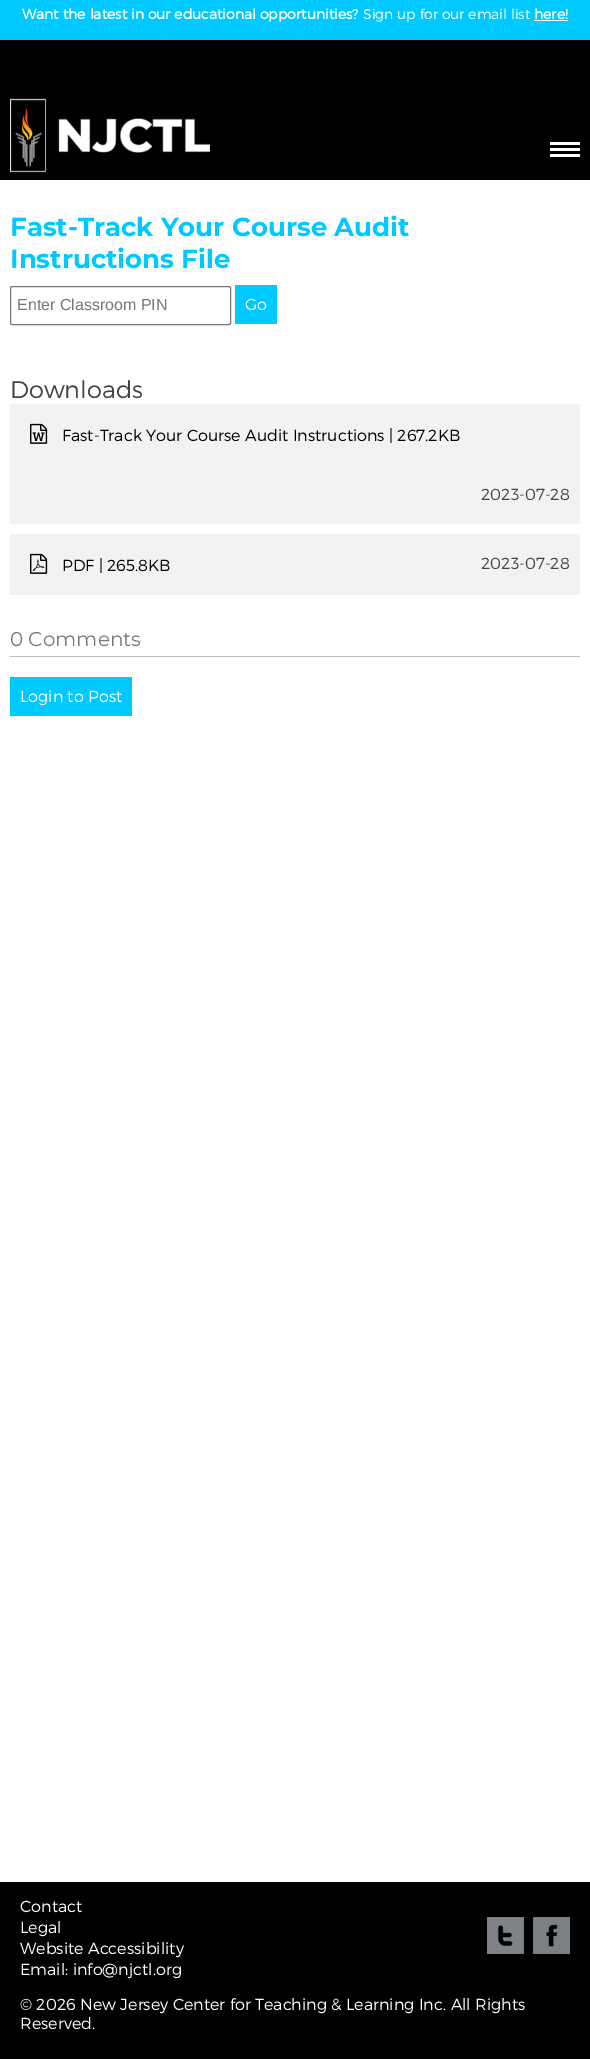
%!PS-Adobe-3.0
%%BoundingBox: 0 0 590 2059
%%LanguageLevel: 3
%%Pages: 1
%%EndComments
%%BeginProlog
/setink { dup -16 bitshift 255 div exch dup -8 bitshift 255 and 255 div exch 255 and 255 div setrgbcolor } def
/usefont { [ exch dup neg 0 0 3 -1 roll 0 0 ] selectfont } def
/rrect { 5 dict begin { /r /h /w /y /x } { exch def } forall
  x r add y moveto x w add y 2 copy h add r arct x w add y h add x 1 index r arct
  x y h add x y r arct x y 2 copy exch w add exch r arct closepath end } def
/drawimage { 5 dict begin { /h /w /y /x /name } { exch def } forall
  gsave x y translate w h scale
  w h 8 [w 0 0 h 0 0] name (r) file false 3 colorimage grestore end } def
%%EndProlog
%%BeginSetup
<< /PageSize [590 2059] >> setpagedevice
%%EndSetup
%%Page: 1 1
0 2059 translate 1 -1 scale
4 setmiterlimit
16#FFFFFF setink
0 0 590 2059 rectfill
16#000000 setink
0 40 590 140 rectfill
16#00C9FF setink
0 0 590 40 rectfill
/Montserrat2-Bold 14 usefont
16#FFFFFF setink
22 19 moveto (Want the latest in our educational opportunities?) show
/Montserrat-Light 14 usefont
363 19 moveto (Sign up for our email list) show
/Montserrat2-Bold 14 usefont
534 19 moveto (here!) show
534 20 34 1 rectfill
(img1.raw) 10 98 200 75 drawimage
[
    [550 142 30 3 16#FFFFFF]
    [550 148 30 3 16#FFFFFF]
    [550 154 30 3 16#FFFFFF]
] { aload pop setink rectfill } forall
/Montserrat-Bold 26 usefont
16#00C9FF setink
10 236 moveto (Fast-Track Your Course Audit) show
10 268 moveto (Instructions File) show
16#767676 setink
10.5 286.5 220 38 1.5 rrect stroke
/LiberationSans-Regular 16 usefont
16#777777 setink
17 310 moveto (Enter Classroom PIN) show
16#00C9FF setink
235 285 42 39 rectfill
/Montserrat-Light 16 usefont
16#FFFFFF setink
245 310 moveto (Go) show
/Montserrat-Light 24 usefont
16#444444 setink
10 398 moveto (Downloads) show
16#F2F2F2 setink
10 404 570 120 rectfill
(img2.raw) 30 423 18 21 drawimage
/Montserrat-Light 16 usefont
16#000000 setink
62 441 moveto (Fast-Track Your Course Audit Instructions | 267.2KB) show
16#444444 setink
481 500 moveto (2023-07-28) show
16#F2F2F2 setink
10 534 570 61 rectfill
(img3.raw) 30 553 18 21 drawimage
16#000000 setink
62 571 moveto (PDF | 265.8KB) show
16#444444 setink
481 569 moveto (2023-07-28) show
16#BDBDBD setink
10 656 570 1 rectfill
/Montserrat-Regular 20 usefont
16#777777 setink
10 646 moveto (0 Comments) show
16#00C9FF setink
10 677 122 39 rectfill
/Montserrat-Light 16 usefont
16#FFFFFF setink
20 702 moveto (Login to Post) show
16#000000 setink
0 1882 590 177 rectfill
16#FFFFFF setink
[
    [(Contact) 20 1912]
    [(Legal) 20 1933]
    [(Website Accessibility) 20 1954]
    [(Email: info@njctl.org) 20 1975]
] { aload pop moveto show } forall
(img4.raw) 487 1917 37 37 drawimage
(img5.raw) 533 1917 37 37 drawimage
20 2010 moveto (© 2026 New Jersey Center for Teaching & Learning Inc. All Rights) show
20 2029 moveto (Reserved.) show
showpage
%%EOF
